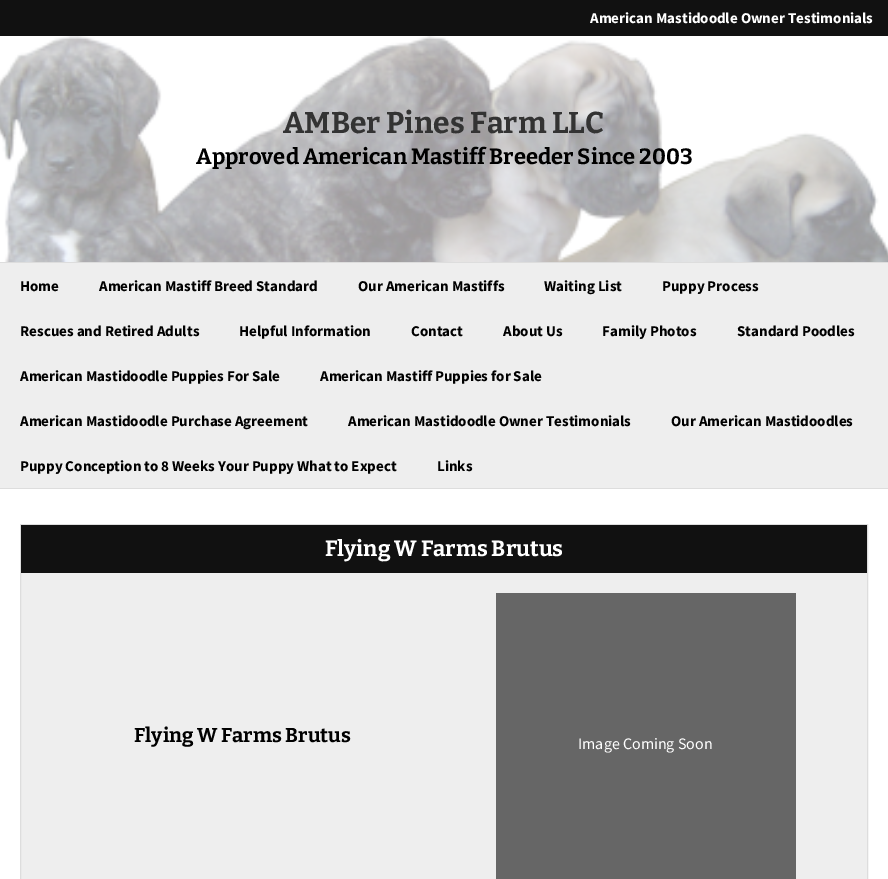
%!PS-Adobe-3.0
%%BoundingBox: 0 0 888 879
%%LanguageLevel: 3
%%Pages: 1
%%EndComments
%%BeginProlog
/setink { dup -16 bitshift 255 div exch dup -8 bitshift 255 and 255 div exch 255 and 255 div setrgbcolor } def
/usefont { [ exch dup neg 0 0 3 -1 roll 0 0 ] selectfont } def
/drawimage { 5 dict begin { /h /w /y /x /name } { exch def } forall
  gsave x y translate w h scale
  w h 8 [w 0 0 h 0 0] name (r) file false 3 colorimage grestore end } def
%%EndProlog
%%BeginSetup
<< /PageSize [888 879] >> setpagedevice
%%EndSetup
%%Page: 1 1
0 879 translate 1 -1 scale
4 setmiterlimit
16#FFFFFF setink
0 0 888 879 rectfill
16#111111 setink
0 0 888 36 rectfill
/SourceSansPro-Bold 15 usefont
16#FFFFFF setink
590 23 moveto (American Mastidoodle Owner Testimonials) show
(img1.raw) 0 36 888 226 drawimage
/Bitter-Bold 30 usefont
16#333333 setink
283 133 moveto (AMBer Pines Farm LLC) show
/Bitter-Bold 22 usefont
16#000000 setink
196 164 moveto (Approved American Mastiff Breeder Since 2003) show
[
    [0 263 888 225 16#EEEEEE]
    [0 262 888 1 16#DDDDDD]
    [0 488 888 1 16#DDDDDD]
] { aload pop setink rectfill } forall
/SourceSansPro-Bold 15 usefont
16#000000 setink
[
    [(Home) 20 291]
    [(American Mastiff Breed Standard) 99 291]
    [(Our American Mastiffs) 358 291]
    [(Waiting List) 544 291]
    [(Puppy Process) 662 291]
    [(Rescues and Retired Adults) 20 336]
    [(Helpful Information) 239 336]
    [(Contact) 411 336]
    [(About Us) 503 336]
    [(Family Photos) 602 336]
    [(Standard Poodles) 737 336]
    [(American Mastidoodle Puppies For Sale) 20 381]
    [(American Mastiff Puppies for Sale) 320 381]
    [(American Mastidoodle Purchase Agreement) 20 426]
    [(American Mastidoodle Owner Testimonials) 348 426]
    [(Our American Mastidoodles) 671 426]
    [(Puppy Conception to 8 Weeks Your Puppy What to Expect) 20 471]
    [(Links) 437 471]
] { aload pop moveto show } forall
16#EEEEEE setink
21 573 846 306 rectfill
16#DDDDDD setink
20.5 524.5 847 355 rectstroke
16#111111 setink
21 525 846 48 rectfill
/Bitter-Bold 22 usefont
16#FFFFFF setink
325 556 moveto (Flying W Farms Brutus) show
/Bitter-Bold 20 usefont
16#000000 setink
134 742 moveto (Flying W Farms Brutus) show
16#666666 setink
496 593 300 286 rectfill
/SourceSansPro-Regular 16 usefont
16#FFFFFF setink
578 749 moveto (Image Coming Soon) show
showpage
%%EOF
